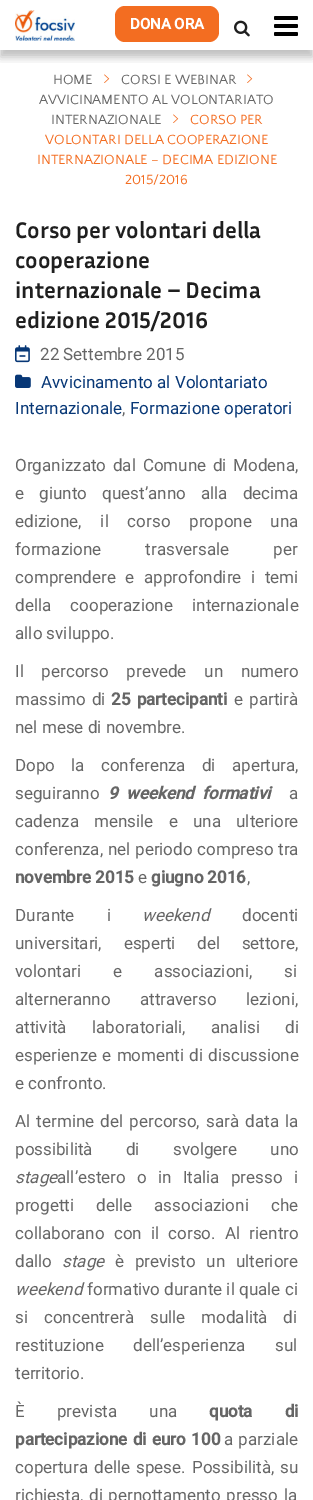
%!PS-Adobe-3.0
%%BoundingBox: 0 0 313 1500
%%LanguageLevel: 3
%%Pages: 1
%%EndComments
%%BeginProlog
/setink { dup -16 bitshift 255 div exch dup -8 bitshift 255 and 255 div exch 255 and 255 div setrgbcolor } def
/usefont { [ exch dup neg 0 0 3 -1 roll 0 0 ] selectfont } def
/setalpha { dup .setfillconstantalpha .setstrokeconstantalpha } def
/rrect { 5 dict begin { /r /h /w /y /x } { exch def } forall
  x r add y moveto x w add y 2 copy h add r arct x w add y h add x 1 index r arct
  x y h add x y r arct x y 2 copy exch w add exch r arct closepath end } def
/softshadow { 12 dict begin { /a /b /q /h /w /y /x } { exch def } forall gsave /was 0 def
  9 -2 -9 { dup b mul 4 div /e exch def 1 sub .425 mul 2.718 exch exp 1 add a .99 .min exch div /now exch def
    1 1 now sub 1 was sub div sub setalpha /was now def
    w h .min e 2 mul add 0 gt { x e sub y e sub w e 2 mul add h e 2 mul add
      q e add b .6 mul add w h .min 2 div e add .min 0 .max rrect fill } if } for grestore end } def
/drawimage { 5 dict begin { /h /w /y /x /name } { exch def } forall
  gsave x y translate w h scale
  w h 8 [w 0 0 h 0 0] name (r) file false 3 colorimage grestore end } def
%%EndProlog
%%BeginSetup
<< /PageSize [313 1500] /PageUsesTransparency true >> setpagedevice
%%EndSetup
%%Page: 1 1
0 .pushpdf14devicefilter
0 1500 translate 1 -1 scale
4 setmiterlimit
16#FFFFFF setink
0 0 313 1500 rectfill
gsave
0 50 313 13 rectclip
16#000000 setink
0 17 313 40 0 4.5 0.25 softshadow
grestore
(img1.raw) 15 10 60 31 drawimage
16#F36D21 setink
115 6 104 36 10 rrect fill
/Roboto-Bold 15 usefont
16#FFFFFF setink
130 29 moveto (DONA ORA) show
(img2.raw) 234 20 16 17 drawimage
(img3.raw) 274 16 24 20 drawimage
/QuattrocentoSans-Regular 14 usefont
16#666666 setink
53 84 moveto (HOME) show
(img4.raw) 104 74 6 9 drawimage
121 84 moveto (CORSI E WEBINAR) show
(img4.raw) 247 74 6 9 drawimage
39 104 moveto (AVVICINAMENTO AL VOLONTARIATO) show
51 124 moveto (INTERNAZIONALE) show
(img4.raw) 173 114 6 9 drawimage
16#F36D21 setink
[
    [(CORSO PER) 190 124]
    [(VOLONTARI DELLA COOPERAZIONE) 45 144]
    [(INTERNAZIONALE – DECIMA EDIZIONE) 37 164]
    [(2015/2016) 125 184]
] { aload pop moveto show } forall
/InriaSans-Bold 23 usefont
16#1F1F1F setink
[
    [(Corso per volontari della) 15 238]
    [(cooperazione) 15 268]
    [(internazionale – Decima) 15 298]
    [(edizione 2015/2016) 15 328]
] { aload pop moveto show } forall
(img5.raw) 15 345 15 18 drawimage
/Roboto-Regular 17 usefont
16#666666 setink
40 360 moveto (22 Settembre 2015) show
(img6.raw) 15 374 16 14 drawimage
16#073776 setink
41 388 moveto (Avvicinamento al Volontariato) show
15 414 moveto (Internazionale) show
16#666666 setink
122 414 moveto (,) show
16#073776 setink
130 414 moveto (Formazione operatori) show
16#666666 setink
15 471 moveto 2.5 0 32 (Organizzato dal Comune di Modena,) widthshow
15 499 moveto 11 0 32 (e giunto quest’anno alla decima) widthshow
15 527 moveto 14.5 0 32 (edizione, il corso propone una) widthshow
15 555 moveto 40 0 32 (formazione trasversale per) widthshow
15 583 moveto 5.5 0 32 (comprendere e approfondire i temi) widthshow
15 611 moveto 15 0 32 (della cooperazione internazionale) widthshow
15 639 moveto (allo sviluppo.) show
15 677 moveto 13.5 0 32 (Il percorso prevede un numero) widthshow
15 705 moveto 2 0 32 (massimo di) widthshow
/Roboto-Bold 17 usefont
111 705 moveto 2 0 32 (25 partecipanti) widthshow
/Roboto-Regular 17 usefont
234 705 moveto 2 0 32 (e partirà) widthshow
15 733 moveto (nel mese di novembre.) show
15 771 moveto 12 0 32 (Dopo la conferenza di apertura,) widthshow
15 799 moveto (seguiranno) show
/Roboto-BoldItalic 17 usefont
108 799 moveto 4 0 32 (9 weekend formativi) widthshow
/Roboto-Regular 17 usefont
289 799 moveto (a) show
15 827 moveto 11 0 32 (cadenza mensile e una ulteriore) widthshow
15 855 moveto 0.5 0 32 (conferenza, nel periodo compreso tra) widthshow
/Roboto-Bold 17 usefont
15 883 moveto (novembre 2015) show
/Roboto-Regular 17 usefont
138 883 moveto (e) show
/Roboto-Bold 17 usefont
151 883 moveto (giugno 2016) show
/Roboto-Regular 17 usefont
247 883 moveto (,) show
15 921 moveto 28 0 32 (Durante i) widthshow
/Roboto-Italic 17 usefont
142 921 moveto (weekend) show
/Roboto-Regular 17 usefont
242 921 moveto (docenti) show
15 949 moveto 17.5 0 32 (universitari, esperti del settore,) widthshow
15 977 moveto 28 0 32 (volontari e associazioni, si) widthshow
15 1005 moveto 25 0 32 (alterneranno attraverso lezioni,) widthshow
15 1033 moveto 21 0 32 (attività laboratoriali, analisi di) widthshow
15 1061 moveto 1 0 32 (esperienze e momenti di discussione) widthshow
15 1089 moveto (e confronto.) show
15 1127 moveto 2 0 32 (Al termine del percorso, sarà data la) widthshow
15 1155 moveto 29 0 32 (possibilità di svolgere uno) widthshow
/Roboto-Italic 17 usefont
15 1183 moveto (stage) show
/Roboto-Regular 17 usefont
57 1183 moveto 7 0 32 (all’estero o in Italia presso i) widthshow
15 1211 moveto 18 0 32 (progetti delle associazioni che) widthshow
15 1239 moveto 5 0 32 (collaborano con il corso. Al rientro) widthshow
15 1267 moveto (dallo) show
/Roboto-Italic 17 usefont
62 1267 moveto (stage) show
/Roboto-Regular 17 usefont
115 1267 moveto 6.5 0 32 (è previsto un ulteriore) widthshow
/Roboto-Italic 17 usefont
15 1295 moveto (weekend) show
/Roboto-Regular 17 usefont
87 1295 moveto (formativo durante il quale ci) show
15 1323 moveto 11.5 0 32 (si concentrerà sulle modalità di) widthshow
15 1351 moveto 25 0 32 (restituzione dell’esperienza sul) widthshow
15 1379 moveto (territorio.) show
15 1417 moveto 28 0 32 (È prevista una) widthshow
/Roboto-Bold 17 usefont
209 1417 moveto 28 0 32 (quota di) widthshow
15 1445 moveto 1 0 32 (partecipazione di euro 100) widthshow
/Roboto-Regular 17 usefont
224 1445 moveto 1 0 32 (a parziale) widthshow
15 1473 moveto 2 0 32 (copertura delle spese. Possibilità, su) widthshow
15 1501 moveto 1.5 0 32 (richiesta, di pernottamento presso la) widthshow
.poppdf14devicefilter showpage
%%EOF
